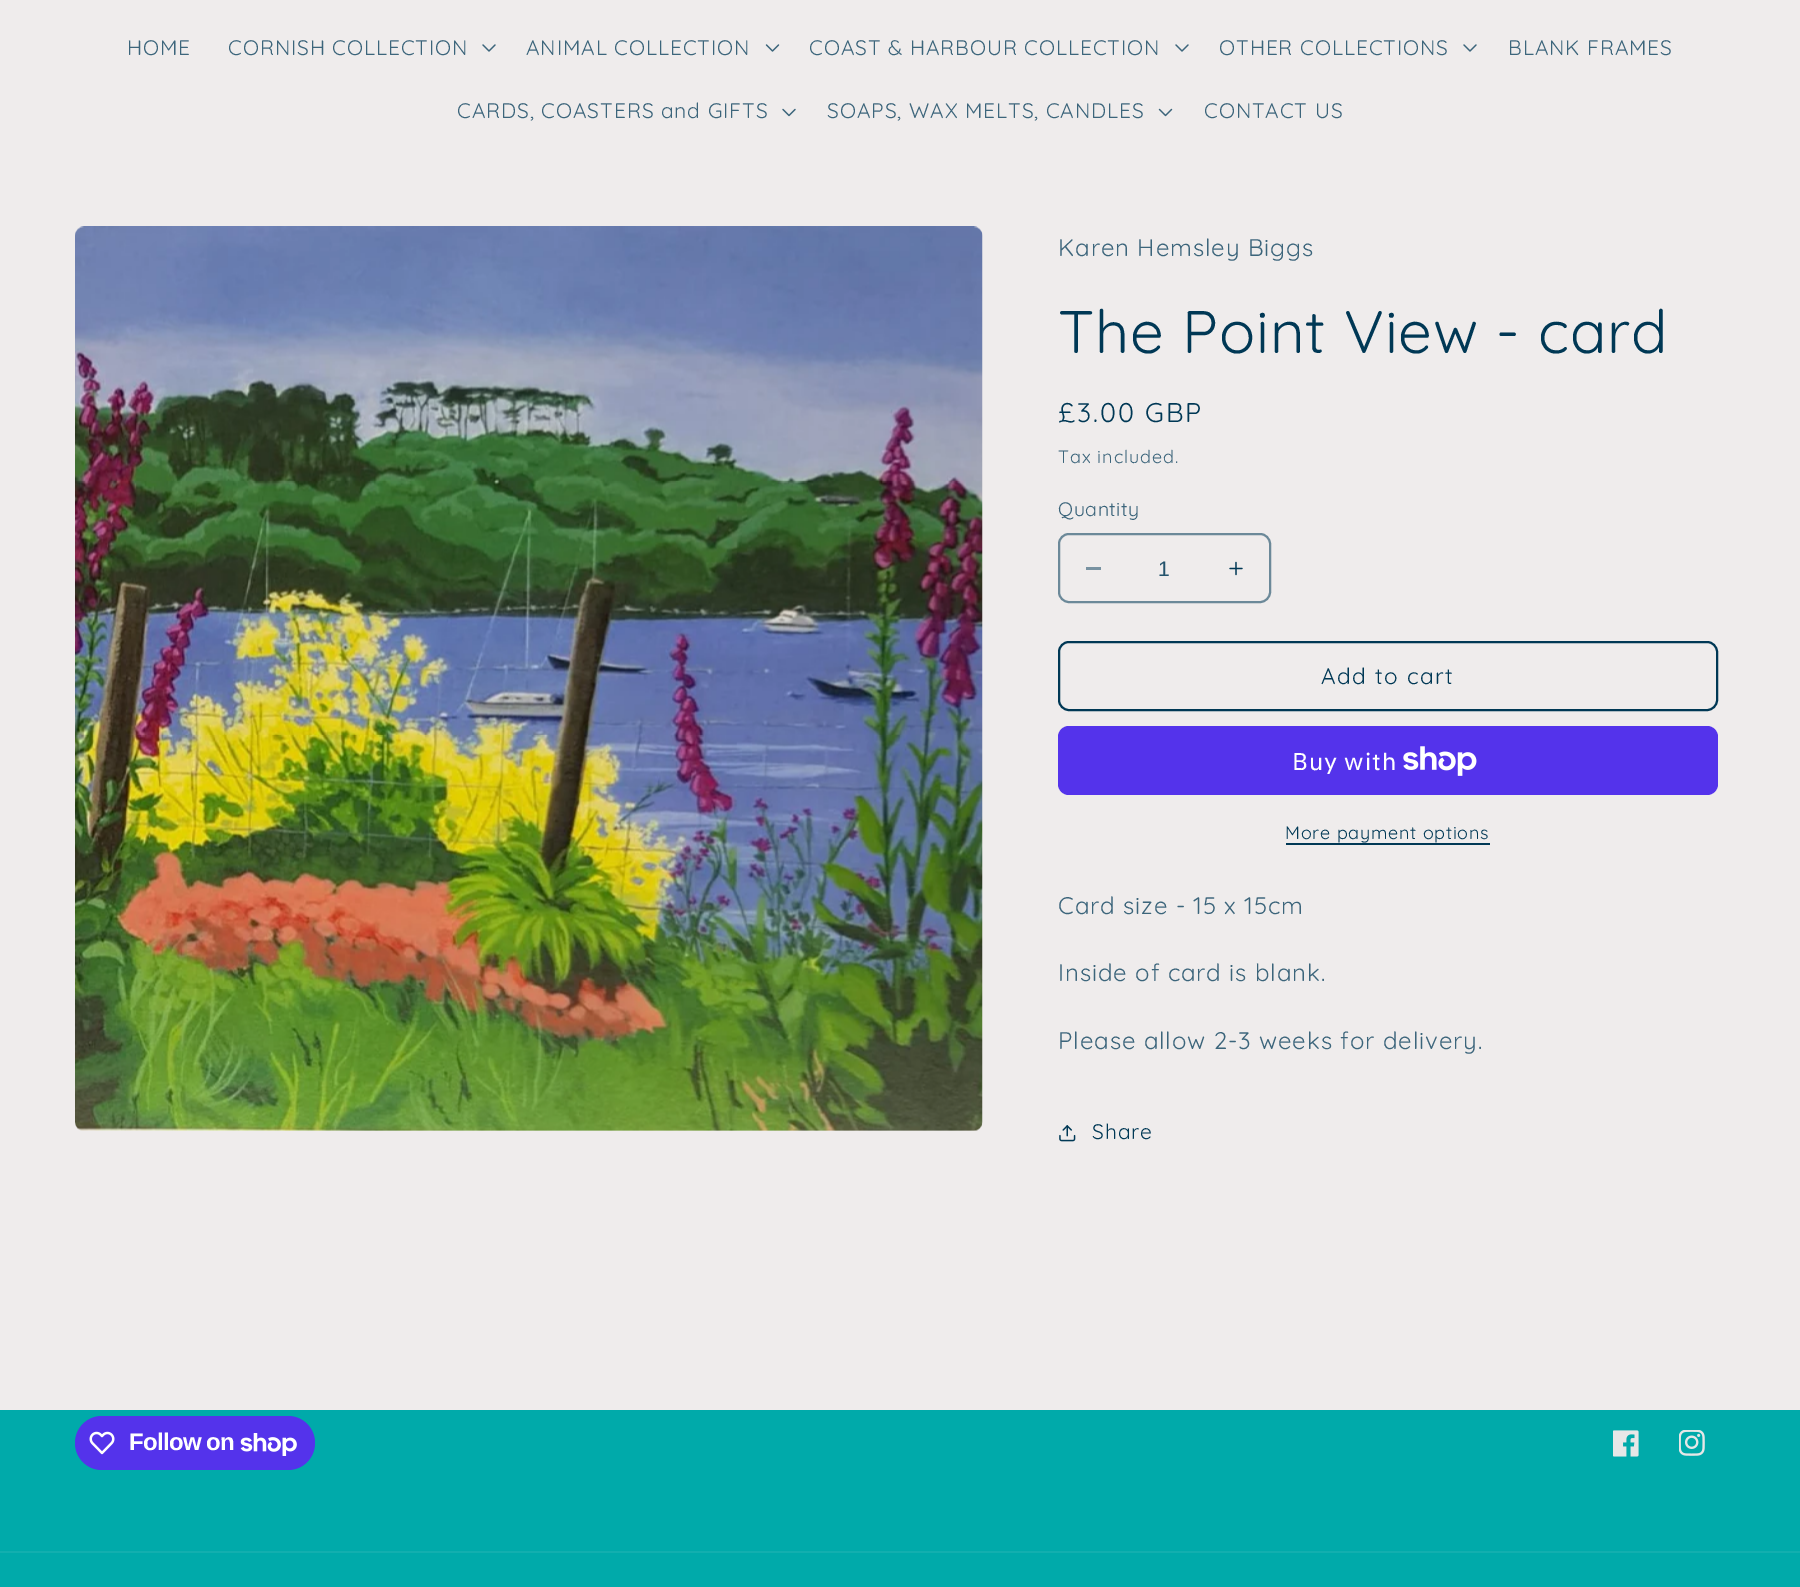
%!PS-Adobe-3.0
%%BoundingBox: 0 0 1800 1587
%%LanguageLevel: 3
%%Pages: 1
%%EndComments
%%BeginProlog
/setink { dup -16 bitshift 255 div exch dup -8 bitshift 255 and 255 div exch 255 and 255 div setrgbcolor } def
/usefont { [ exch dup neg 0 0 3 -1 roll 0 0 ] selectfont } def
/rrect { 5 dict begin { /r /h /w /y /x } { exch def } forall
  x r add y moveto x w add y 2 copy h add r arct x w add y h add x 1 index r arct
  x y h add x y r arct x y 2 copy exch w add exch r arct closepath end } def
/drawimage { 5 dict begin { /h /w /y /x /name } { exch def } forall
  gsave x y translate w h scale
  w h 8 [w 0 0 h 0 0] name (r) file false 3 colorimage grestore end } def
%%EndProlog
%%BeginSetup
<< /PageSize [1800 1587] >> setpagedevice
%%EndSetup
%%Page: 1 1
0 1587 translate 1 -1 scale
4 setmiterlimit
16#EFECEC setink
0 0 1800 1587 rectfill
/Quicksand-Regular 21 usefont
16#3C657B setink
127 55 moveto 0.9 0 (HOME) ashow
228 55 moveto 0.9 0 (CORNISH COLLECTION) ashow
(img1.raw) 482 44 14 8 drawimage
526 55 moveto 0.9 0 (ANIMAL COLLECTION) ashow
(img2.raw) 765 44 15 8 drawimage
809 55 moveto 0.9 0 (COAST & HARBOUR COLLECTION) ashow
(img1.raw) 1175 44 14 8 drawimage
1219 55 moveto 0.9 0 (OTHER COLLECTIONS) ashow
(img1.raw) 1463 44 14 8 drawimage
1508 55 moveto 0.9 0 (BLANK FRAMES) ashow
457 118 moveto 0.9 0 (CARDS, COASTERS and GIFTS) ashow
(img3.raw) 782 108 14 9 drawimage
827 118 moveto 0.9 0 (SOAPS, WAX MELTS, CANDLES) ashow
(img4.raw) 1158 108 15 9 drawimage
1204 118 moveto 0.9 0 (CONTACT US) ashow
(img5.raw) 75 226 908 905 drawimage
/Quicksand-Regular 24 usefont
1058 256 moveto 0.9 0 (Karen Hemsley Biggs) ashow
/Quicksand-Regular 60 usefont
16#003855 setink
1058 353 moveto 0.9 0 (The Point View - card) ashow
/Quicksand-Regular 27 usefont
1058 422 moveto 2 0 (£3.00 GBP) ashow
/Quicksand-Regular 18 usefont
16#3C657B setink
1058 463 moveto 1 0 (Tax included.) ashow
/Quicksand-Regular 19.5 usefont
1058 516 moveto 0.5 0 (Quantity) ashow
16#7892A1 setink
1086 567 15 3 rectfill
(img6.raw) 1229 561 14 15 drawimage
16#6C8999 setink
2 setlinewidth
1059 534 211 68 10 rrect stroke
/LiberationSans-Regular 21 usefont
16#24536C setink
1158 576 moveto (1) show
16#003855 setink
1059 642 658 68 10 rrect stroke
/Quicksand-Regular 22.5 usefont
1321 684 moveto 1.5 0 (Add to cart) ashow
16#5433EB setink
1058 726 660 69 11 rrect fill
/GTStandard-Regular 24 usefont
16#FFFFFF setink
1292 770 moveto 0.9 0 (Buy with) ashow
(img7.raw) 1403 746 74 30 drawimage
/Quicksand-Regular 18 usefont
16#003855 setink
1285 839 moveto 0.75 0 (More payment options) ashow
1286 843 204 2 rectfill
/Quicksand-Regular 24 usefont
16#3C657B setink
1058 914 moveto 0.9 0 (Card size - 15 x 15cm) ashow
1058 981 moveto 0.9 0 (Inside of card is blank.) ashow
1058 1049 moveto 0.9 0 (Please allow 2-3 weeks for delivery.) ashow
(img8.raw) 1059 1125 17 17 drawimage
/Quicksand-Regular 21 usefont
16#003855 setink
1092 1139 moveto 0.9 0 (Share) ashow
16#00AAAA setink
0 1410 1800 177 rectfill
16#5433EB setink
75 1416 240 54 27 rrect fill
(img9.raw) 89 1431 26 24 drawimage
/LiberationSans-Bold 24 usefont
16#FFFFFF setink
129 1450 moveto -0.75 0 (Follow on) ashow
(img10.raw) 240 1433 57 23 drawimage
(img11.raw) 1613 1430 26 27 drawimage
(img12.raw) 1679 1430 26 26 drawimage
16#12AFAF setink
0 1551 1800 2 rectfill
showpage
%%EOF
